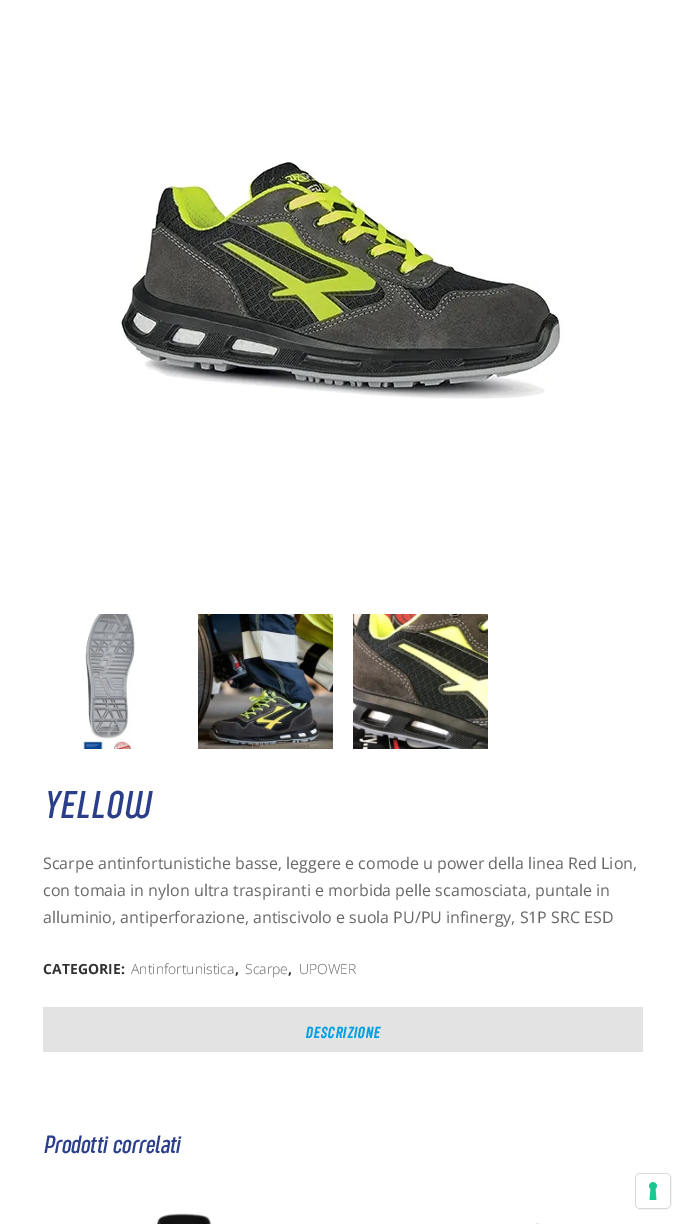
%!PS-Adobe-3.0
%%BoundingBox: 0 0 686 1224
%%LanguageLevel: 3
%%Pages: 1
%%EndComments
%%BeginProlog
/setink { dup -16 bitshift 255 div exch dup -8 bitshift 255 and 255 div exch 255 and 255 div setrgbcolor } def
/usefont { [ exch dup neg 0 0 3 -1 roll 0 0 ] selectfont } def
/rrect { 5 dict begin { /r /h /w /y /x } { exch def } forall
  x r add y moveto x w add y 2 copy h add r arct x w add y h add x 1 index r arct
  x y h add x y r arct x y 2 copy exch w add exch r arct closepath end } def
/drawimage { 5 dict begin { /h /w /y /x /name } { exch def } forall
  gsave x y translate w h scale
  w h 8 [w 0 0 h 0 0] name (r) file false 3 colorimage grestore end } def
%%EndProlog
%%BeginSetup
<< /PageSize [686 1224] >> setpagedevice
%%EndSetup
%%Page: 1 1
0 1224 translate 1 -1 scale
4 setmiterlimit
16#FFFFFF setink
0 0 686 1224 rectfill
(img1.raw) 119 162 444 237 drawimage
(img2.raw) 82 614 53 135 drawimage
(img3.raw) 198 614 135 135 drawimage
(img4.raw) 353 614 135 135 drawimage
/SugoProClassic-LightItalic 40 usefont
16#2A3E8A setink
43 818 moveto 1 0 (YELLOW) ashow
/OpenSans-Regular 16 usefont
16#666769 setink
[
    [(Scarpe antinfortunistiche basse, leggere e comode u power della linea Red Lion,) 43 869]
    [(con tomaia in nylon ultra traspiranti e morbida pelle scamosciata, puntale in) 43 896]
    [(alluminio, antiperforazione, antiscivolo e suola PU/PU infinergy, S1P SRC ESD) 43 923]
] { aload pop moveto show } forall
/OpenSans-Bold 14 usefont
16#333333 setink
43 974 moveto (CATEGORIE:) show
/OpenSans-Light 14 usefont
16#666769 setink
131 974 moveto (Antinfortunistica) show
/OpenSans-Bold 14 usefont
16#333333 setink
235 974 moveto (,) show
/OpenSans-Light 14 usefont
16#666769 setink
245 974 moveto (Scarpe) show
/OpenSans-Bold 14 usefont
16#333333 setink
288 974 moveto (,) show
/OpenSans-Light 14 usefont
16#666769 setink
299 974 moveto (UPOWER) show
16#E3E3E3 setink
43 1007 600 45 rectfill
/SugoProClassic-BoldItalic 16 usefont
16#00A0E4 setink
305 1038 moveto 1 0 (DESCRIZIONE) ashow
/SugoProClassic-LightItalic 26 usefont
16#2A3E8A setink
43 1153 moveto (Prodotti correlati) show
(img5.raw) 155 1213 58 11 drawimage
(img6.raw) 522 1223 20 1 drawimage
16#D9D9D9 setink
635.5 1173.5 35 35 4.5 rrect stroke
16#FFFFFF setink
636 1174 34 34 4 rrect fill
(img7.raw) 649 1182 8 18 drawimage
showpage
%%EOF
